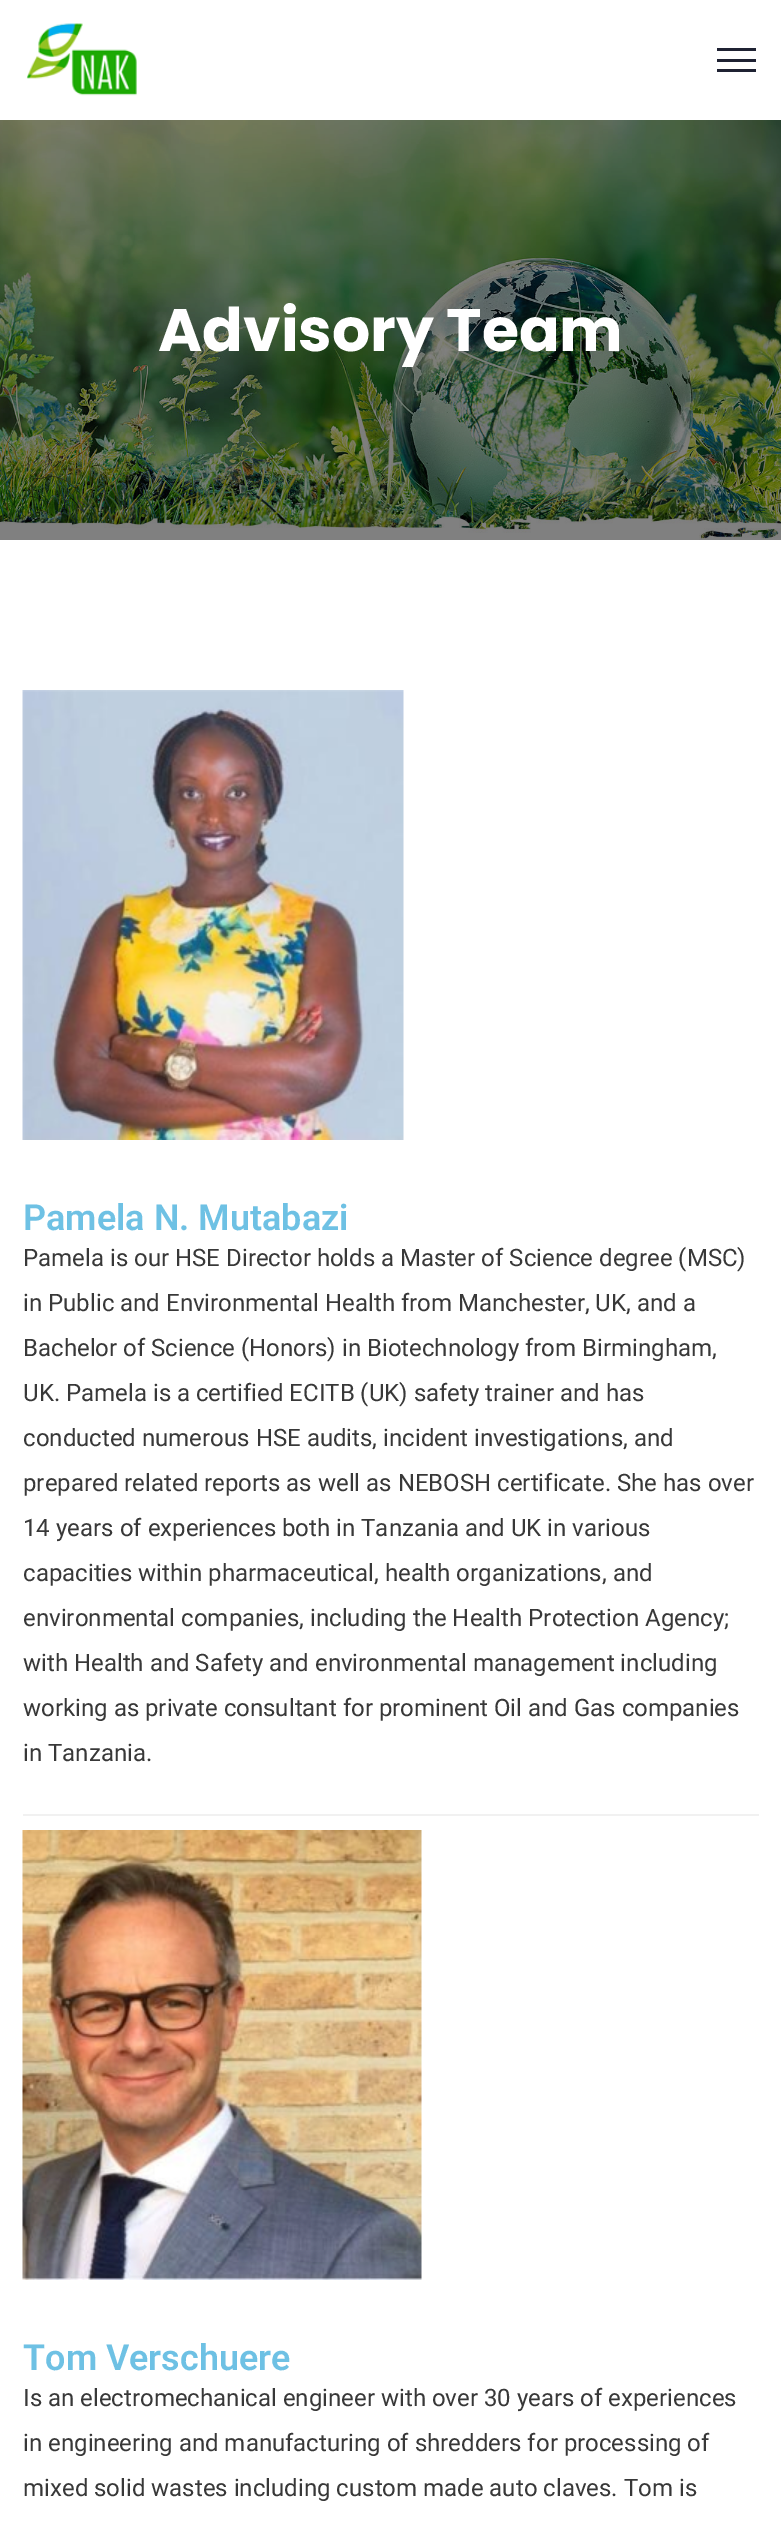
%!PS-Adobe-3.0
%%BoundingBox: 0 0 781 2521
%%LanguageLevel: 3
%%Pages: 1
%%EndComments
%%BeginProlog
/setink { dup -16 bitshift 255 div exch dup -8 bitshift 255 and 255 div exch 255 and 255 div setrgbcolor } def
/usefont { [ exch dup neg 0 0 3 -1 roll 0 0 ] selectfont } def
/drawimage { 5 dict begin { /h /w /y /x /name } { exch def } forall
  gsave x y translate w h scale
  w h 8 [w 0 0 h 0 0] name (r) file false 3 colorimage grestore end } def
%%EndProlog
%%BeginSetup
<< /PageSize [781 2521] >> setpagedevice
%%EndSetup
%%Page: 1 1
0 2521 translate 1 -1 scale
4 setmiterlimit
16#FFFFFF setink
0 0 781 2521 rectfill
(img1.raw) 26 23 111 73 drawimage
[
    [717 48 39 3 16#1F2233]
    [717 59 39 3 16#1F2233]
    [717 69 39 3 16#1F2233]
] { aload pop setink rectfill } forall
(img2.raw) 0 120 781 420 drawimage
/Poppins-Bold 60 usefont
16#FFFFFF setink
158 351 moveto (Advisory Team) show
16#F1F1F1 setink
23 1814 736 2 rectfill
(img3.raw) 22 690 382 450 drawimage
/Roboto-SemiBold 36 usefont
16#6EC1E4 setink
23 1230 moveto (Pamela N. Mutabazi) show
/Roboto-Regular 24 usefont
16#383838 setink
[
    [(Pamela is our HSE Director holds a Master of Science degree \(MSC\)) 23 1266]
    [(in Public and Environmental Health from Manchester, UK, and a) 23 1311]
    [(Bachelor of Science \(Honors\) in Biotechnology from Birmingham,) 23 1356]
    [(UK. Pamela is a certified ECITB \(UK\) safety trainer and has) 23 1401]
    [(conducted numerous HSE audits, incident investigations, and) 23 1446]
    [(prepared related reports as well as NEBOSH certificate. She has over) 23 1491]
    [(14 years of experiences both in Tanzania and UK in various) 23 1536]
    [(capacities within pharmaceutical, health organizations, and) 23 1581]
    [(environmental companies, including the Health Protection Agency;) 23 1626]
    [(with Health and Safety and environmental management including) 23 1671]
    [(working as private consultant for prominent Oil and Gas companies) 23 1716]
    [(in Tanzania.) 23 1761]
] { aload pop moveto show } forall
(img4.raw) 22 1830 400 450 drawimage
/Roboto-SemiBold 36 usefont
16#6EC1E4 setink
23 2370 moveto (Tom Verschuere) show
/Roboto-Regular 24 usefont
16#383838 setink
[
    [(Is an electromechanical engineer with over 30 years of experiences) 23 2406]
    [(in engineering and manufacturing of shredders for processing of) 23 2451]
    [(mixed solid wastes including custom made auto claves. Tom is) 23 2496]
] { aload pop moveto show } forall
showpage
%%EOF
